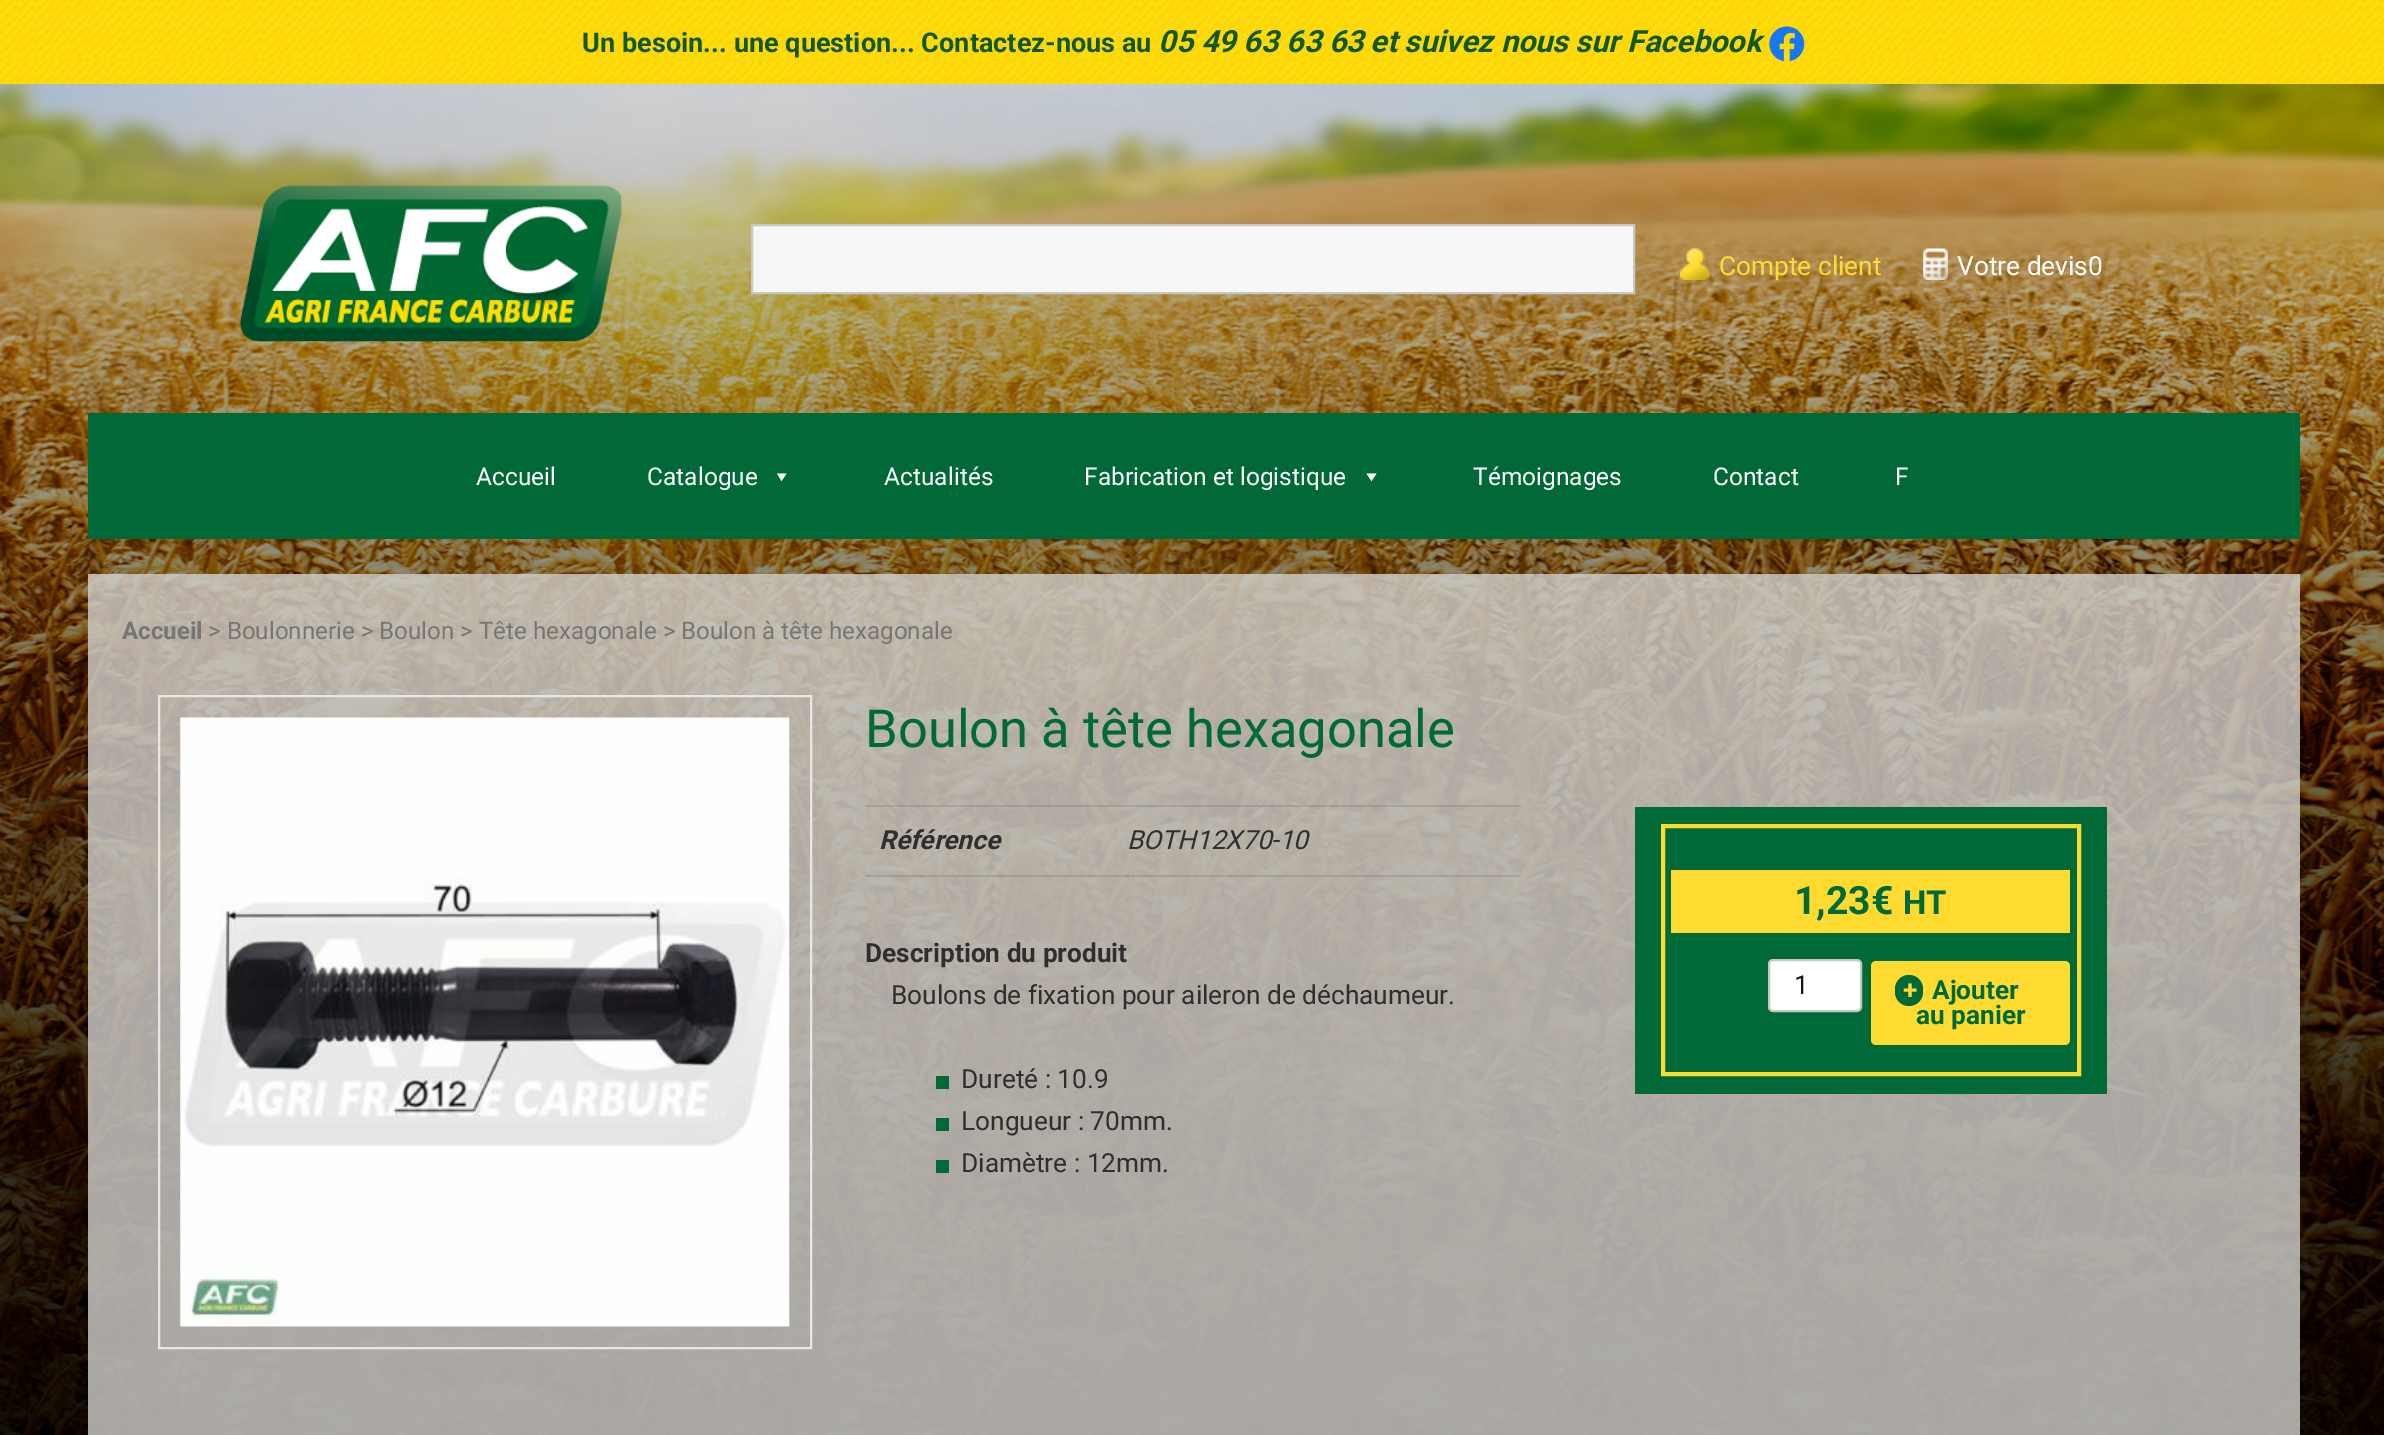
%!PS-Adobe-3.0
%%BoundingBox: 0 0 2384 1435
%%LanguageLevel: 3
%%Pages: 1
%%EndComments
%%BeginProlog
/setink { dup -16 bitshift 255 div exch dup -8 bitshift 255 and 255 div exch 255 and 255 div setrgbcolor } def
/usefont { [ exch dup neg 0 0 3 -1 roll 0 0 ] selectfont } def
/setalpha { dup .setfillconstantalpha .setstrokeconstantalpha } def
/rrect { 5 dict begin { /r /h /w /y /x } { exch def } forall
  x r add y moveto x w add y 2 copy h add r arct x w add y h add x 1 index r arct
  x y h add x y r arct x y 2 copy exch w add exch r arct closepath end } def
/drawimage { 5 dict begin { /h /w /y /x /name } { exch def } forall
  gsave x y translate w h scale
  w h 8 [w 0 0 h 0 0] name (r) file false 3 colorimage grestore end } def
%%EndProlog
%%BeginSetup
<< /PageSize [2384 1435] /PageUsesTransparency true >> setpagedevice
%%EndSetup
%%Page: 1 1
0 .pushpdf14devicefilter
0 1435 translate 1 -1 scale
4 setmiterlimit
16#FFFFFF setink
0 0 2384 1435 rectfill
(img1.raw) 0 84 2384 1351 drawimage
(img2.raw) 0 0 2384 84 drawimage
/Roboto-Bold 27.1 usefont
16#135724 setink
582 52 moveto (Un besoin... une question... Contactez-nous au) show
/Roboto-BoldItalic 30.6 usefont
1158 52 moveto (05 49 63 63 63) show
1370 52 moveto (et suivez nous sur Facebook) show
(img3.raw) 1769 26 36 36 drawimage
16#F7F7F7 setink
752 225 moveto 1634 225 lineto 1634 293 lineto 752 293 lineto closepath gsave fill grestore
16#C7C7C7 setink
2 setlinewidth
stroke
(img4.raw) 1680 248 30 32 drawimage
/Roboto-Regular 26.25 usefont
16#FFDB31 setink
1719 275 moveto (Compte client) show
(img5.raw) 1923 248 25 32 drawimage
16#FFFFFF setink
1957 275 moveto (Votre devis0) show
(img6.raw) 239 185 383 157 drawimage
0.9 setalpha
16#006938 setink
88 413 2212 126 rectfill
88 413 2212 126 rectfill
/Roboto-Regular 24.5 usefont
1 setalpha
16#FFFFFF setink
476 485 moveto (Accueil) show
647 485 moveto (Catalogue) show
786.5 473.5 moveto 781.5 481 lineto 777 473.5 lineto closepath fill
884 485 moveto (Actualités) show
1084 485 moveto (Fabrication et logistique) show
1376.5 473.5 moveto 1371.5 481 lineto 1366.5 473.5 lineto closepath fill
[
    [(Témoignages) 1473 485]
    [(Contact) 1713 485]
    [(F) 1895 485]
] { aload pop moveto show } forall
0.8 setalpha
16#D1D0CD setink
88 574 2212 861 rectfill
/Roboto-Bold 24.15 usefont
1 setalpha
16#767676 setink
122 639 moveto (Accueil) show
/Roboto-Regular 24.15 usefont
208 639 moveto (> Boulonnerie > Boulon > Tête hexagonale > Boulon à tête hexagonale) show
16#E7E7E7 setink
159 696 652 652 rectstroke
(img7.raw) 180 717 610 610 drawimage
/Roboto-Regular 52.5 usefont
16#006938 setink
865 747 moveto (Boulon à tête hexagonale) show
0.1 setalpha
[
    [865 805 656 2 16#000000]
    [1127 875 394 2 16#000000]
    [865 875 264 2 16#000000]
] { aload pop setink rectfill } forall
/Roboto-BoldItalic 26.25 usefont
1 setalpha
16#2F2F2F setink
879 849 moveto (Référence) show
/Roboto-Italic 26.25 usefont
1127 849 moveto (BOTH12X70-10) show
/Roboto-Bold 26.25 usefont
865 962 moveto (Description du produit) show
/Roboto-Regular 26.25 usefont
891 1004 moveto (Boulons de fixation pour aileron de déchaumeur.) show
16#006935 setink
936 1076 13 13 rectfill
16#2F2F2F setink
961 1088 moveto (Dureté : 10.9) show
16#006935 setink
936 1118 13 13 rectfill
16#2F2F2F setink
961 1130 moveto (Longueur : 70mm.) show
16#006935 setink
936 1160 13 13 rectfill
16#2F2F2F setink
961 1172 moveto (Diamètre : 12mm.) show
16#006938 setink
1635 807 472 287 rectfill
16#FFDB31 setink
4 setlinewidth
1663 826 416 248 rectstroke
1671 870 399 63 rectfill
/Roboto-Bold 39 usefont
16#006938 setink
1794 914 moveto (1,23€) show
/Roboto-Bold 33 usefont
1903 914 moveto (HT) show
16#FFFFFF setink
1769 960 92 51 4 rrect gsave fill grestore
16#C7C7C7 setink
2 setlinewidth
stroke
/Roboto-Regular 26.25 usefont
16#141412 setink
1794 994 moveto (1) show
16#FFDB31 setink
1871 961 199 84 5 rrect fill
16#006938 setink
1895 975 28 31 14 rrect fill
/Roboto-Bold 26.25 usefont
16#FFDB31 setink
1903 999 moveto (+) show
16#006938 setink
1932 999 moveto (Ajouter) show
1916 1024 moveto (au panier) show
.poppdf14devicefilter showpage
%%EOF
